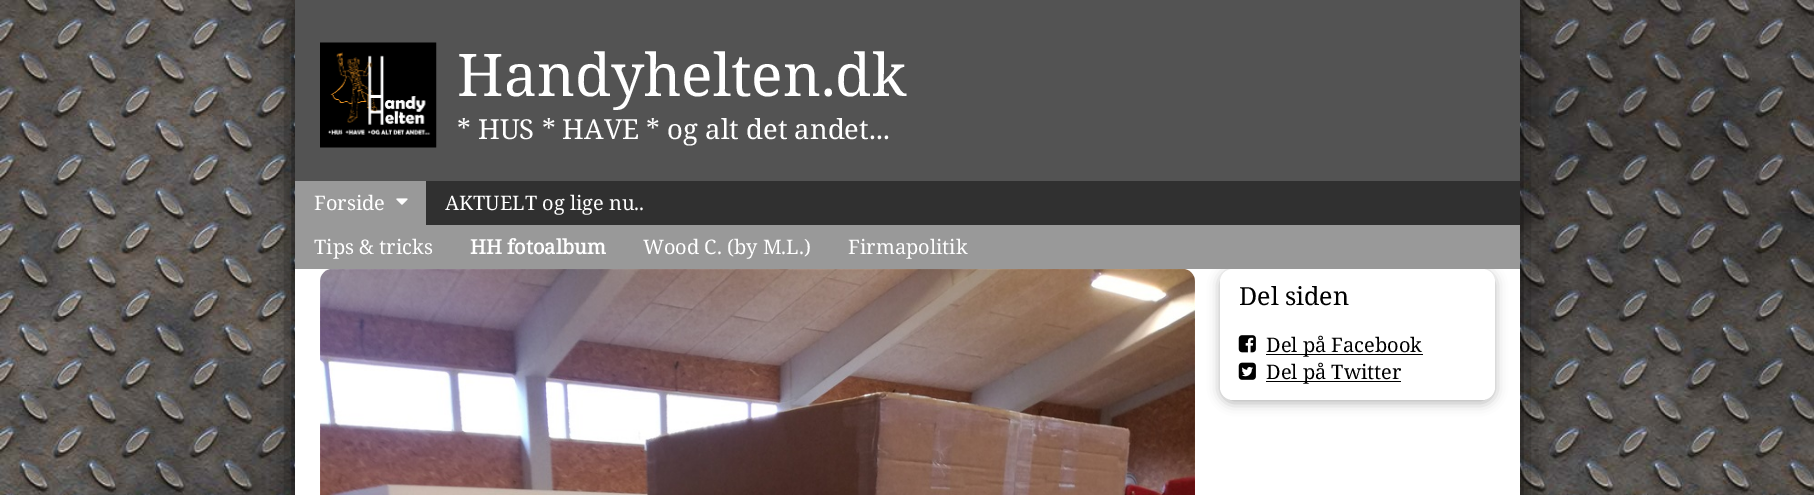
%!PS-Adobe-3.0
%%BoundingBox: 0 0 1814 495
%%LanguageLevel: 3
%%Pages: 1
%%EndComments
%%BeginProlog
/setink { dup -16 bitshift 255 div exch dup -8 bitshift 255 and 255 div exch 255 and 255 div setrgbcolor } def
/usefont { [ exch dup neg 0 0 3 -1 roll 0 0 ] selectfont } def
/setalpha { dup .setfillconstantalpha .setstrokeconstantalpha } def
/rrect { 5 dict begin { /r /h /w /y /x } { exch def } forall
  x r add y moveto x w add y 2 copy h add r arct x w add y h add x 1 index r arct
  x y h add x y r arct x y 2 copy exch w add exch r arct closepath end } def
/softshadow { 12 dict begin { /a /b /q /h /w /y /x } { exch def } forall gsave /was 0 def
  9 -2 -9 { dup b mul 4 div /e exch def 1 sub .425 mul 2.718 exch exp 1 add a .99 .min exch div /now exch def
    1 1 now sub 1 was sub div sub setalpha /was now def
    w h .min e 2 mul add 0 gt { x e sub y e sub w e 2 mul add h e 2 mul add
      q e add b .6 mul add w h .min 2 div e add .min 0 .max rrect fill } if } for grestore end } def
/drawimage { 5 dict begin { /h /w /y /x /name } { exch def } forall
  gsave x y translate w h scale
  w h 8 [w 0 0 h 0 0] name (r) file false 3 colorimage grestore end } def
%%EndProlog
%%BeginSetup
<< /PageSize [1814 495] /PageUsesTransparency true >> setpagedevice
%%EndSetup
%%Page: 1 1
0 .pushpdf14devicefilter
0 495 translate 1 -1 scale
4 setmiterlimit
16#FFFFFF setink
0 0 1814 495 rectfill
(img1.raw) 0 0 1814 495 drawimage
16#000000 setink
295 0 1225 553 13 15 0.8 softshadow
16#FFFFFF setink
295 269 1225 226 rectfill
16#535353 setink
295 0 1225 181 rectfill
(img2.raw) 320 42 117 106 drawimage
/NotoSerif-Regular 58.75 usefont
16#FFFFFF setink
457 96 moveto (Handyhelten.dk) show
/NotoSerif-Regular 27.5 usefont
457 139 moveto (* HUS * HAVE * og alt det andet...) show
16#303030 setink
426 181 1094 44 rectfill
16#999999 setink
295 181 131 44 rectfill
/NotoSerif-Regular 20 usefont
16#FFFFFF setink
314 210 moveto (Forside) show
(img3.raw) 396 198 12 7 drawimage
16#000000 setink
1220 271 275 132 13 6 0.29 softshadow
16#999999 setink
295 225 1225 44 rectfill
16#FFFFFF setink
314 254 moveto (Tips & tricks) show
/NotoSerif-Bold 20 usefont
470 254 moveto (HH fotoalbum) show
/NotoSerif-Regular 20 usefont
[
    [(Wood C. \(by M.L.\)) 643 254]
    [(Firmapolitik) 848 254]
    [(AKTUELT og lige nu..) 445 210]
] { aload pop moveto show } forall
(img4.raw) 320 269 875 226 drawimage
1220 269 275 131 13 rrect fill
/NotoSerif-Regular 25 usefont
16#000000 setink
1239 305 moveto (Del siden) show
(img5.raw) 1238 335 18 18 drawimage
1266 354 157 1 rectfill
/NotoSerif-Regular 20 usefont
1266 352 moveto (Del på Facebook) show
(img6.raw) 1238 362 18 18 drawimage
1266 381 135 1 rectfill
1266 379 moveto (Del på Twitter) show
.poppdf14devicefilter showpage
%%EOF
